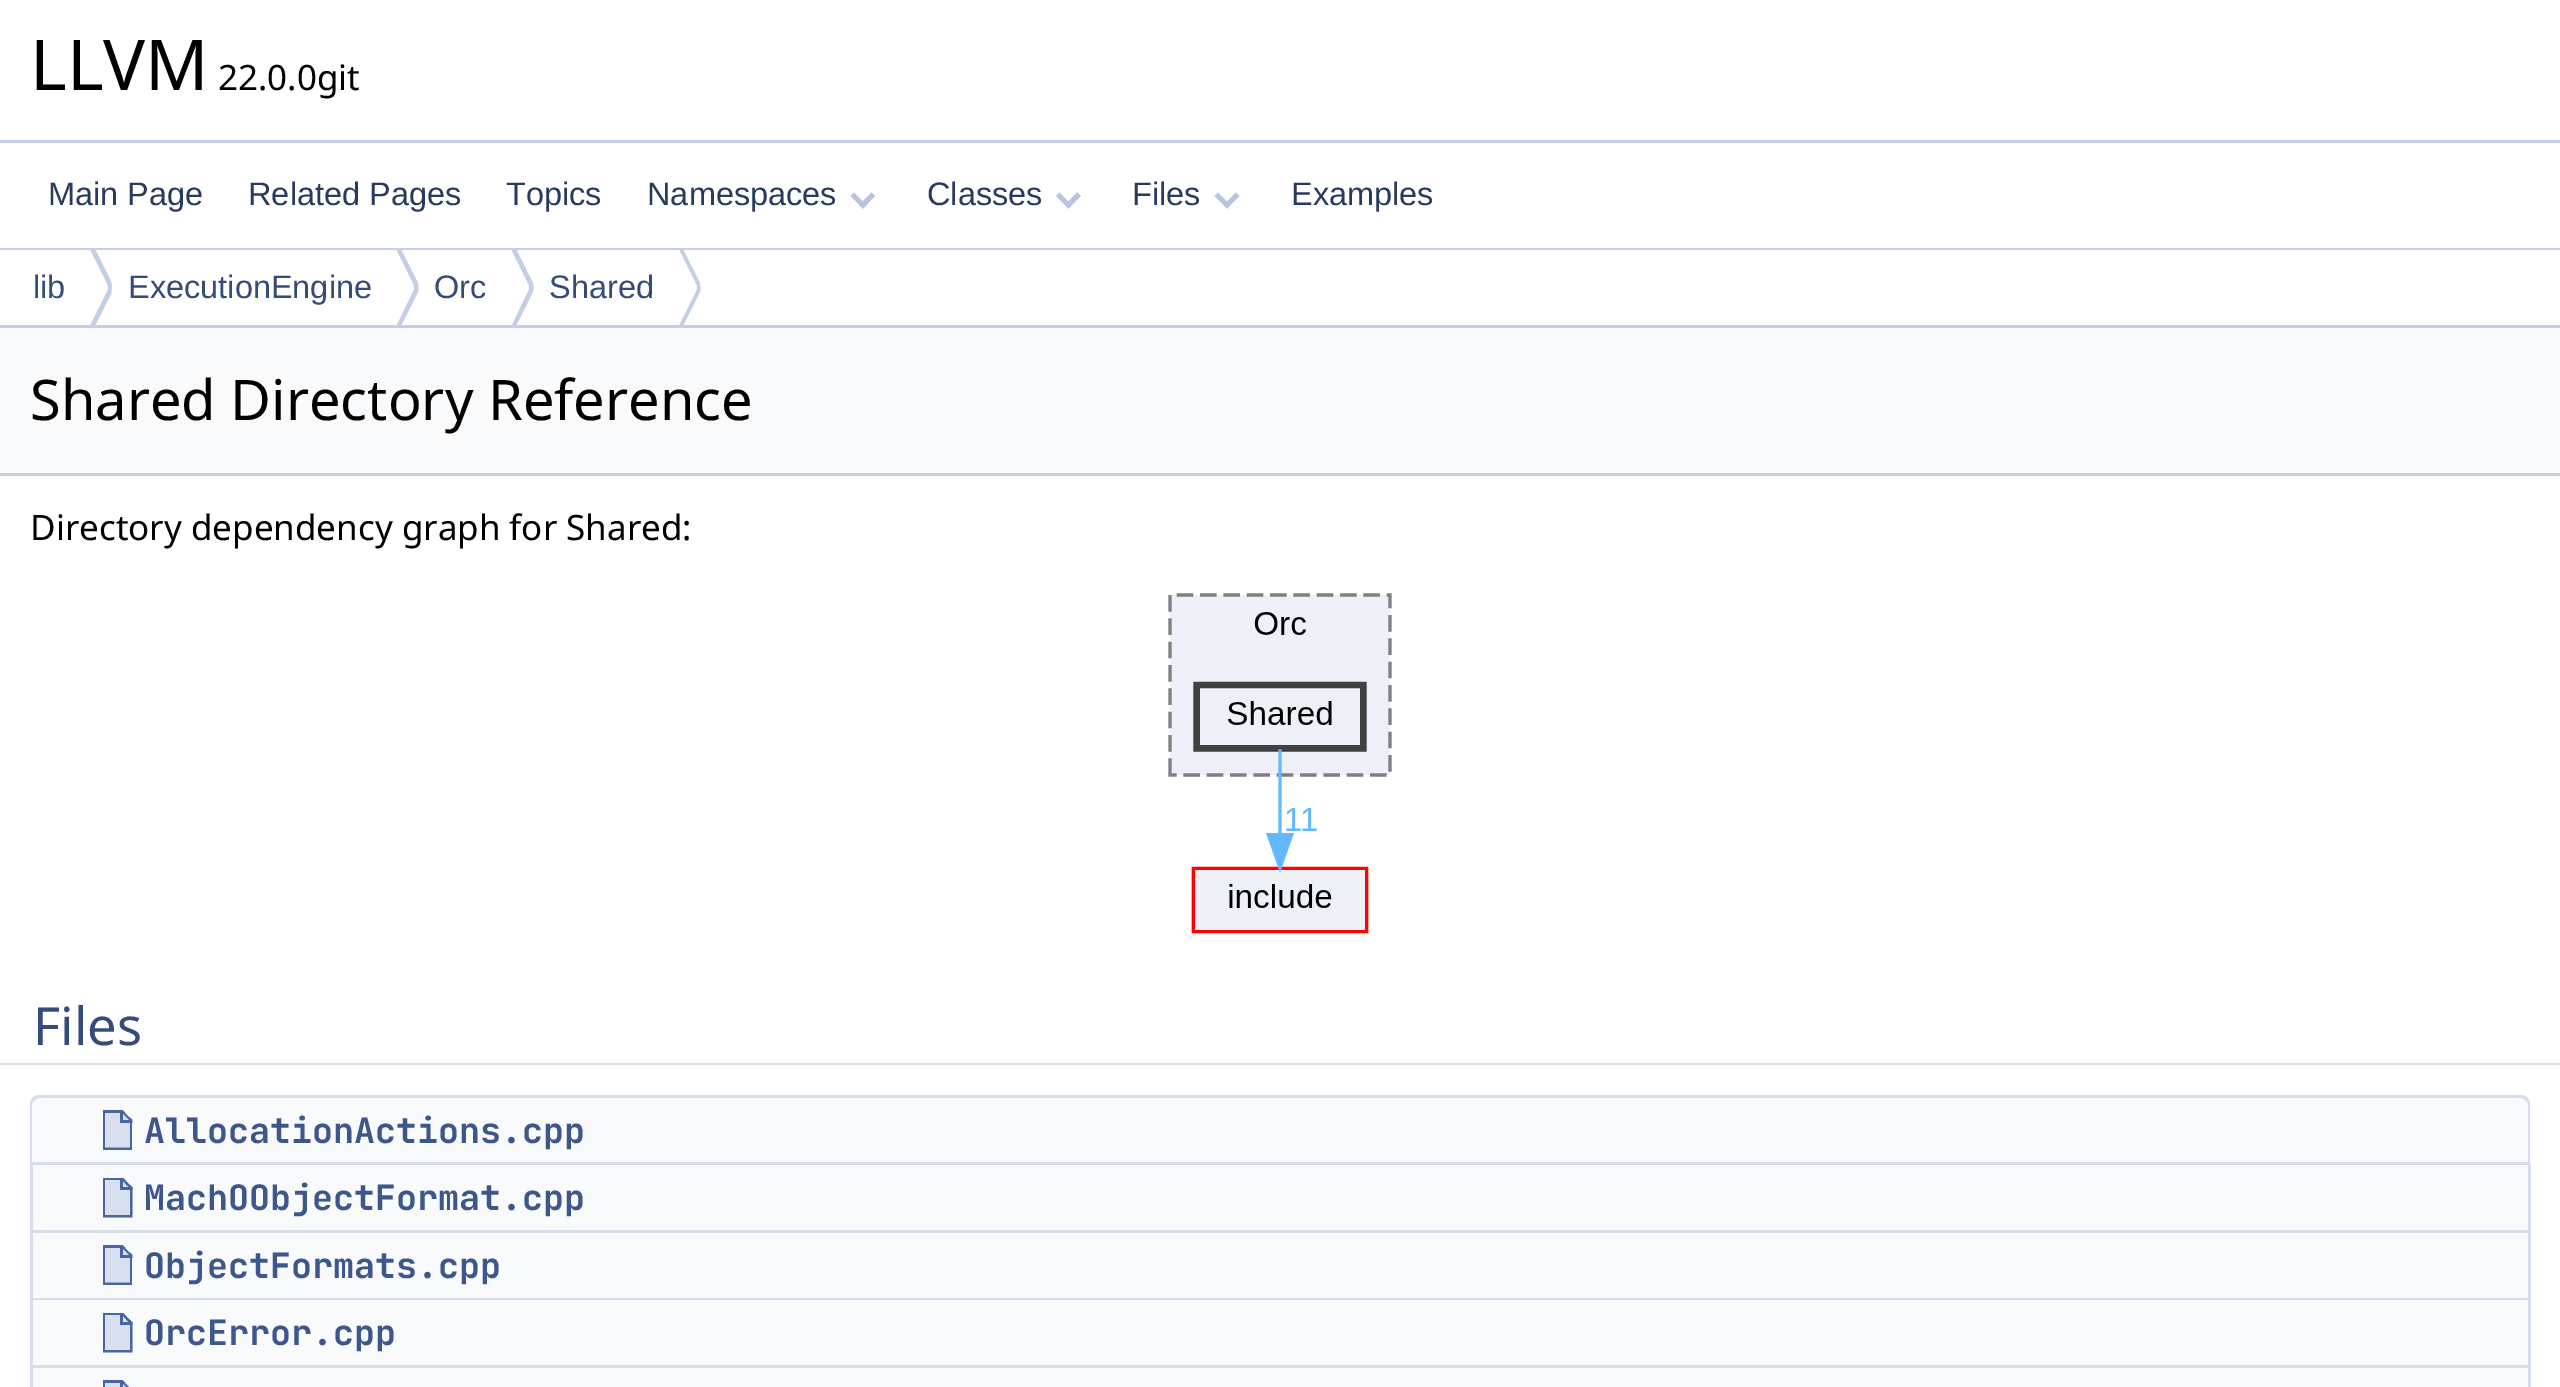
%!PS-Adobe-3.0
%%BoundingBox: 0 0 2560 1387
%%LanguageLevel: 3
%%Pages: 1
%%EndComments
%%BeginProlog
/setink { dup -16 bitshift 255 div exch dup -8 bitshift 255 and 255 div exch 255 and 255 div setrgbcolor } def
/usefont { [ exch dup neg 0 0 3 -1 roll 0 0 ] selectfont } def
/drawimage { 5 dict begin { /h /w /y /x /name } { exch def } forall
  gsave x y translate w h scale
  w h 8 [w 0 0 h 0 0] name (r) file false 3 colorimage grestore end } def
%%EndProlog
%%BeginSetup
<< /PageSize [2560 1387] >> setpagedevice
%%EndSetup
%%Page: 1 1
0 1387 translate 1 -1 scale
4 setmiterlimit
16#FFFFFF setink
0 0 2560 1387 rectfill
16#C4CFE5 setink
0 140 2560 3 rectfill
/NotoSans-Regular 70 usefont
16#000000 setink
30 90 moveto (LLVM) show
/NotoSans-Regular 35 usefont
218 90 moveto (22.0.0git) show
16#C4CFE5 setink
0 248 2560 2 rectfill
/LiberationSans-Regular 32.5 usefont
16#283A5D setink
[
    [(Main Page) 48 205]
    [(Related Pages) 248 205]
    [(Topics) 506 205]
    [(Namespaces) 647 205]
] { aload pop moveto show } forall
16#B6C4DF setink
871.5 192.5 moveto 875 196 lineto 863 208.5 lineto 859 205 lineto closepath fill
854 192.5 moveto 866.5 205 lineto 863 208.5 lineto 850.5 196 lineto closepath fill
16#283A5D setink
927 205 moveto (Classes) show
16#B6C4DF setink
1077 192.5 moveto 1081 196 lineto 1068.5 208.5 lineto 1065 205 lineto closepath fill
1059.5 192.5 moveto 1072 205 lineto 1068.5 208.5 lineto 1056 196 lineto closepath fill
16#283A5D setink
1132 205 moveto (Files) show
16#B6C4DF setink
1236 192.5 moveto 1239.5 196 lineto 1227 208.5 lineto 1223.5 205 lineto closepath fill
1218 192.5 moveto 1230.5 205 lineto 1227 208.5 lineto 1214.5 196 lineto closepath fill
16#283A5D setink
1291 205 moveto (Examples) show
16#C4CFE5 setink
0 325 2560 3 rectfill
16#354C7B setink
33 298 moveto (lib) show
gsave
0 250 2560 75 rectclip
16#C4CFE5 setink
93 245 moveto 90 250 lineto 107 284 lineto 108 286 108 289 107 291 curveto 90 324 lineto 93 330 lineto 111 294 lineto 112 290 112 285 111 281 curveto closepath fill
grestore
16#FFFFFF setink
90 250 moveto 107 284 lineto 108 286 108 289 107 291 curveto 90 325 lineto 80 304 80 271 90 250 curveto closepath fill
16#354C7B setink
128 298 moveto (ExecutionEngine) show
gsave
0 250 2560 75 rectclip
16#C4CFE5 setink
399 245 moveto 397 251 lineto 413 284 lineto 414 286 414 289 413 291 curveto 397 325 lineto 399 330 lineto 417 294 lineto 419 290 419 285 417 281 curveto closepath fill
grestore
16#FFFFFF setink
396 250 moveto 413 284 lineto 414 286 414 289 413 291 curveto 396 325 lineto 386 304 386 271 396 250 curveto closepath fill
16#354C7B setink
434 298 moveto (Orc) show
gsave
0 250 2560 75 rectclip
16#C4CFE5 setink
514 245 moveto 512 251 lineto 528 284 lineto 529 286 529 289 528 291 curveto 512 325 lineto 514 330 lineto 532 294 lineto 534 290 534 285 532 281 curveto closepath fill
grestore
16#FFFFFF setink
511 250 moveto 528 284 lineto 529 286 529 289 528 291 curveto 511 325 lineto 501 304 501 271 511 250 curveto closepath fill
16#354C7B setink
549 298 moveto (Shared) show
gsave
0 250 2560 75 rectclip
16#C4CFE5 setink
681 245 moveto 679 250 lineto 696 284 lineto 697 286 697 289 696 291 curveto 679 325 lineto 681 330 lineto 699 294 lineto 701 290 701 285 699 281 curveto closepath fill
grestore
16#FFFFFF setink
679 250 moveto 696 284 lineto 697 286 697 289 696 291 curveto 679 325 lineto 668 304 668 271 679 250 curveto closepath fill
16#F9FAFC setink
0 328 2560 145 rectfill
16#C4CFE5 setink
0 473 2560 3 rectfill
/NotoSans-Regular 56 usefont
16#000000 setink
30 420 moveto (Shared Directory Reference) show
/NotoSans-Regular 35 usefont
30 540 moveto (Directory dependency graph for Shared:) show
(img1.raw) 1168 593 224 341 drawimage
16#D9E0EE setink
0 980 moveto 0 1065 lineto 2495 1065 lineto 2495 1062 lineto 32 1062 lineto 32 980 lineto closepath fill
65 1062 moveto 65 1065 lineto 2560 1065 lineto 2560 980 lineto 2528 980 lineto 2528 1062 lineto closepath fill
16#FFFFFF setink
0 978 moveto 0 1063 lineto 2495 1063 lineto 2495 1062 lineto 32 1062 lineto 32 978 lineto closepath fill
65 1062 moveto 65 1063 lineto 2560 1063 lineto 2560 978 lineto 2528 978 lineto 2528 1062 lineto closepath fill
/NotoSans-Regular 52.5 usefont
16#354C7B setink
33 1045 moveto (Files) show
16#F9FAFC setink
40 1095 moveto 140 1095 lineto 140 1165 lineto 30 1165 lineto 30 1105 lineto 30 1099.5 34.5 1095 40 1095 curveto closepath fill
16#D5DDEC setink
40 1095 moveto 140 1095 lineto 140 1165 lineto 30 1165 lineto 30 1105 lineto 30 1099 34 1095 40 1095 curveto closepath 40 1098 moveto 140 1098 lineto 140 1162 lineto 32 1162 lineto 32 1105 lineto 32 1101 36 1098 40 1098 curveto closepath eofill
16#4665A2 setink
103 1110 moveto 103 1150 lineto 132 1150 lineto 132 1120 lineto 122 1110 lineto closepath fill
16#D8DFEE setink
105 1113 moveto 105 1147.5 lineto 130 1147.5 lineto 130 1121 lineto 122 1113 lineto closepath fill
16#4665A2 setink
120 1110 moveto 120 1123 lineto 132.5 1123 lineto 132.5 1120 lineto 130 1117.5 lineto 130 1120 lineto 123 1120 lineto 123 1113 lineto 125.5 1113 lineto 122.5 1110 lineto closepath fill
16#F9FAFC setink
140 1095 moveto 2520 1095 lineto 2525.5 1095 2530 1099.5 2530 1105 curveto 2530 1165 lineto 140 1165 lineto closepath fill
16#D5DDEC setink
140 1095 moveto 2520 1095 lineto 2526 1095 2530 1099 2530 1105 curveto 2530 1165 lineto 140 1165 lineto closepath 140 1098 moveto 2520 1098 lineto 2524 1098 2528 1101 2528 1105 curveto 2528 1162 lineto 140 1162 lineto closepath eofill
/JetBrainsMono-Bold 35 usefont
16#3D578C setink
144 1143 moveto (AllocationActions.cpp) show
[
    [33 1165 2495 65 16#F9FAFC]
    [30 1230 110 3 16#D5DDEC]
    [30 1165 3 68 16#D5DDEC]
] { aload pop setink rectfill } forall
16#4665A2 setink
103 1178 moveto 123 1178 lineto 132.5 1187.5 lineto 132.5 1217.5 lineto 103 1217.5 lineto closepath fill
16#D8DFEE setink
105 1180 moveto 105 1215 lineto 130 1215 lineto 130 1189 lineto 121.5 1180 lineto closepath fill
16#4665A2 setink
120 1178 moveto 120 1190 lineto 132.5 1190 lineto 132.5 1187.5 lineto 130 1185 lineto 130 1187 lineto 123 1187 lineto 123 1181 lineto 126 1181 lineto 123 1178 lineto closepath fill
16#D5DDEC setink
2528 1165 3 222 rectfill
140 1230 2390 3 rectfill
16#3D578C setink
144 1210 moveto (MachOObjectFormat.cpp) show
[
    [33 1233 2495 65 16#F9FAFC]
    [30 1298 2500 2 16#D5DDEC]
    [30 1233 3 67 16#D5DDEC]
] { aload pop setink rectfill } forall
16#4665A2 setink
103 1245 moveto 103 1285 lineto 132 1285 lineto 132 1255 lineto 122 1245 lineto closepath fill
16#D8DFEE setink
105 1248 moveto 105 1282.5 lineto 130 1282.5 lineto 130 1256 lineto 122 1248 lineto closepath fill
16#4665A2 setink
120 1245 moveto 120 1258 lineto 132.5 1258 lineto 132.5 1255 lineto 130 1252.5 lineto 130 1255 lineto 123 1255 lineto 123 1248 lineto 125.5 1248 lineto 122.5 1245 lineto closepath fill
16#3D578C setink
144 1278 moveto (ObjectFormats.cpp) show
[
    [33 1300 2495 65 16#F9FAFC]
    [30 1365 2500 3 16#D5DDEC]
    [30 1300 3 87 16#D5DDEC]
] { aload pop setink rectfill } forall
16#4665A2 setink
103 1313 moveto 123 1313 lineto 132.5 1322.5 lineto 132.5 1352.5 lineto 103 1352.5 lineto closepath fill
16#D8DFEE setink
105 1315 moveto 105 1350 lineto 130 1350 lineto 130 1324 lineto 121.5 1315 lineto closepath fill
16#4665A2 setink
120 1313 moveto 120 1325 lineto 132.5 1325 lineto 132.5 1322.5 lineto 130 1320 lineto 130 1322 lineto 123 1322 lineto 123 1316 lineto 126 1316 lineto 123 1313 lineto closepath fill
16#3D578C setink
144 1345 moveto (OrcError.cpp) show
16#F9FAFC setink
33 1368 2495 19 rectfill
16#4665A2 setink
103 1380 moveto 103 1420 lineto 132 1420 lineto 132 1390 lineto 122 1380 lineto closepath fill
16#D8DFEE setink
105 1383 moveto 105 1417.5 lineto 130 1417.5 lineto 130 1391 lineto 122 1383 lineto closepath fill
16#4665A2 setink
120 1380 moveto 120 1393 lineto 132.5 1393 lineto 132.5 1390 lineto 130 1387.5 lineto 130 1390 lineto 123 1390 lineto 123 1383 lineto 125.5 1383 lineto 122.5 1380 lineto closepath fill
showpage
%%EOF
